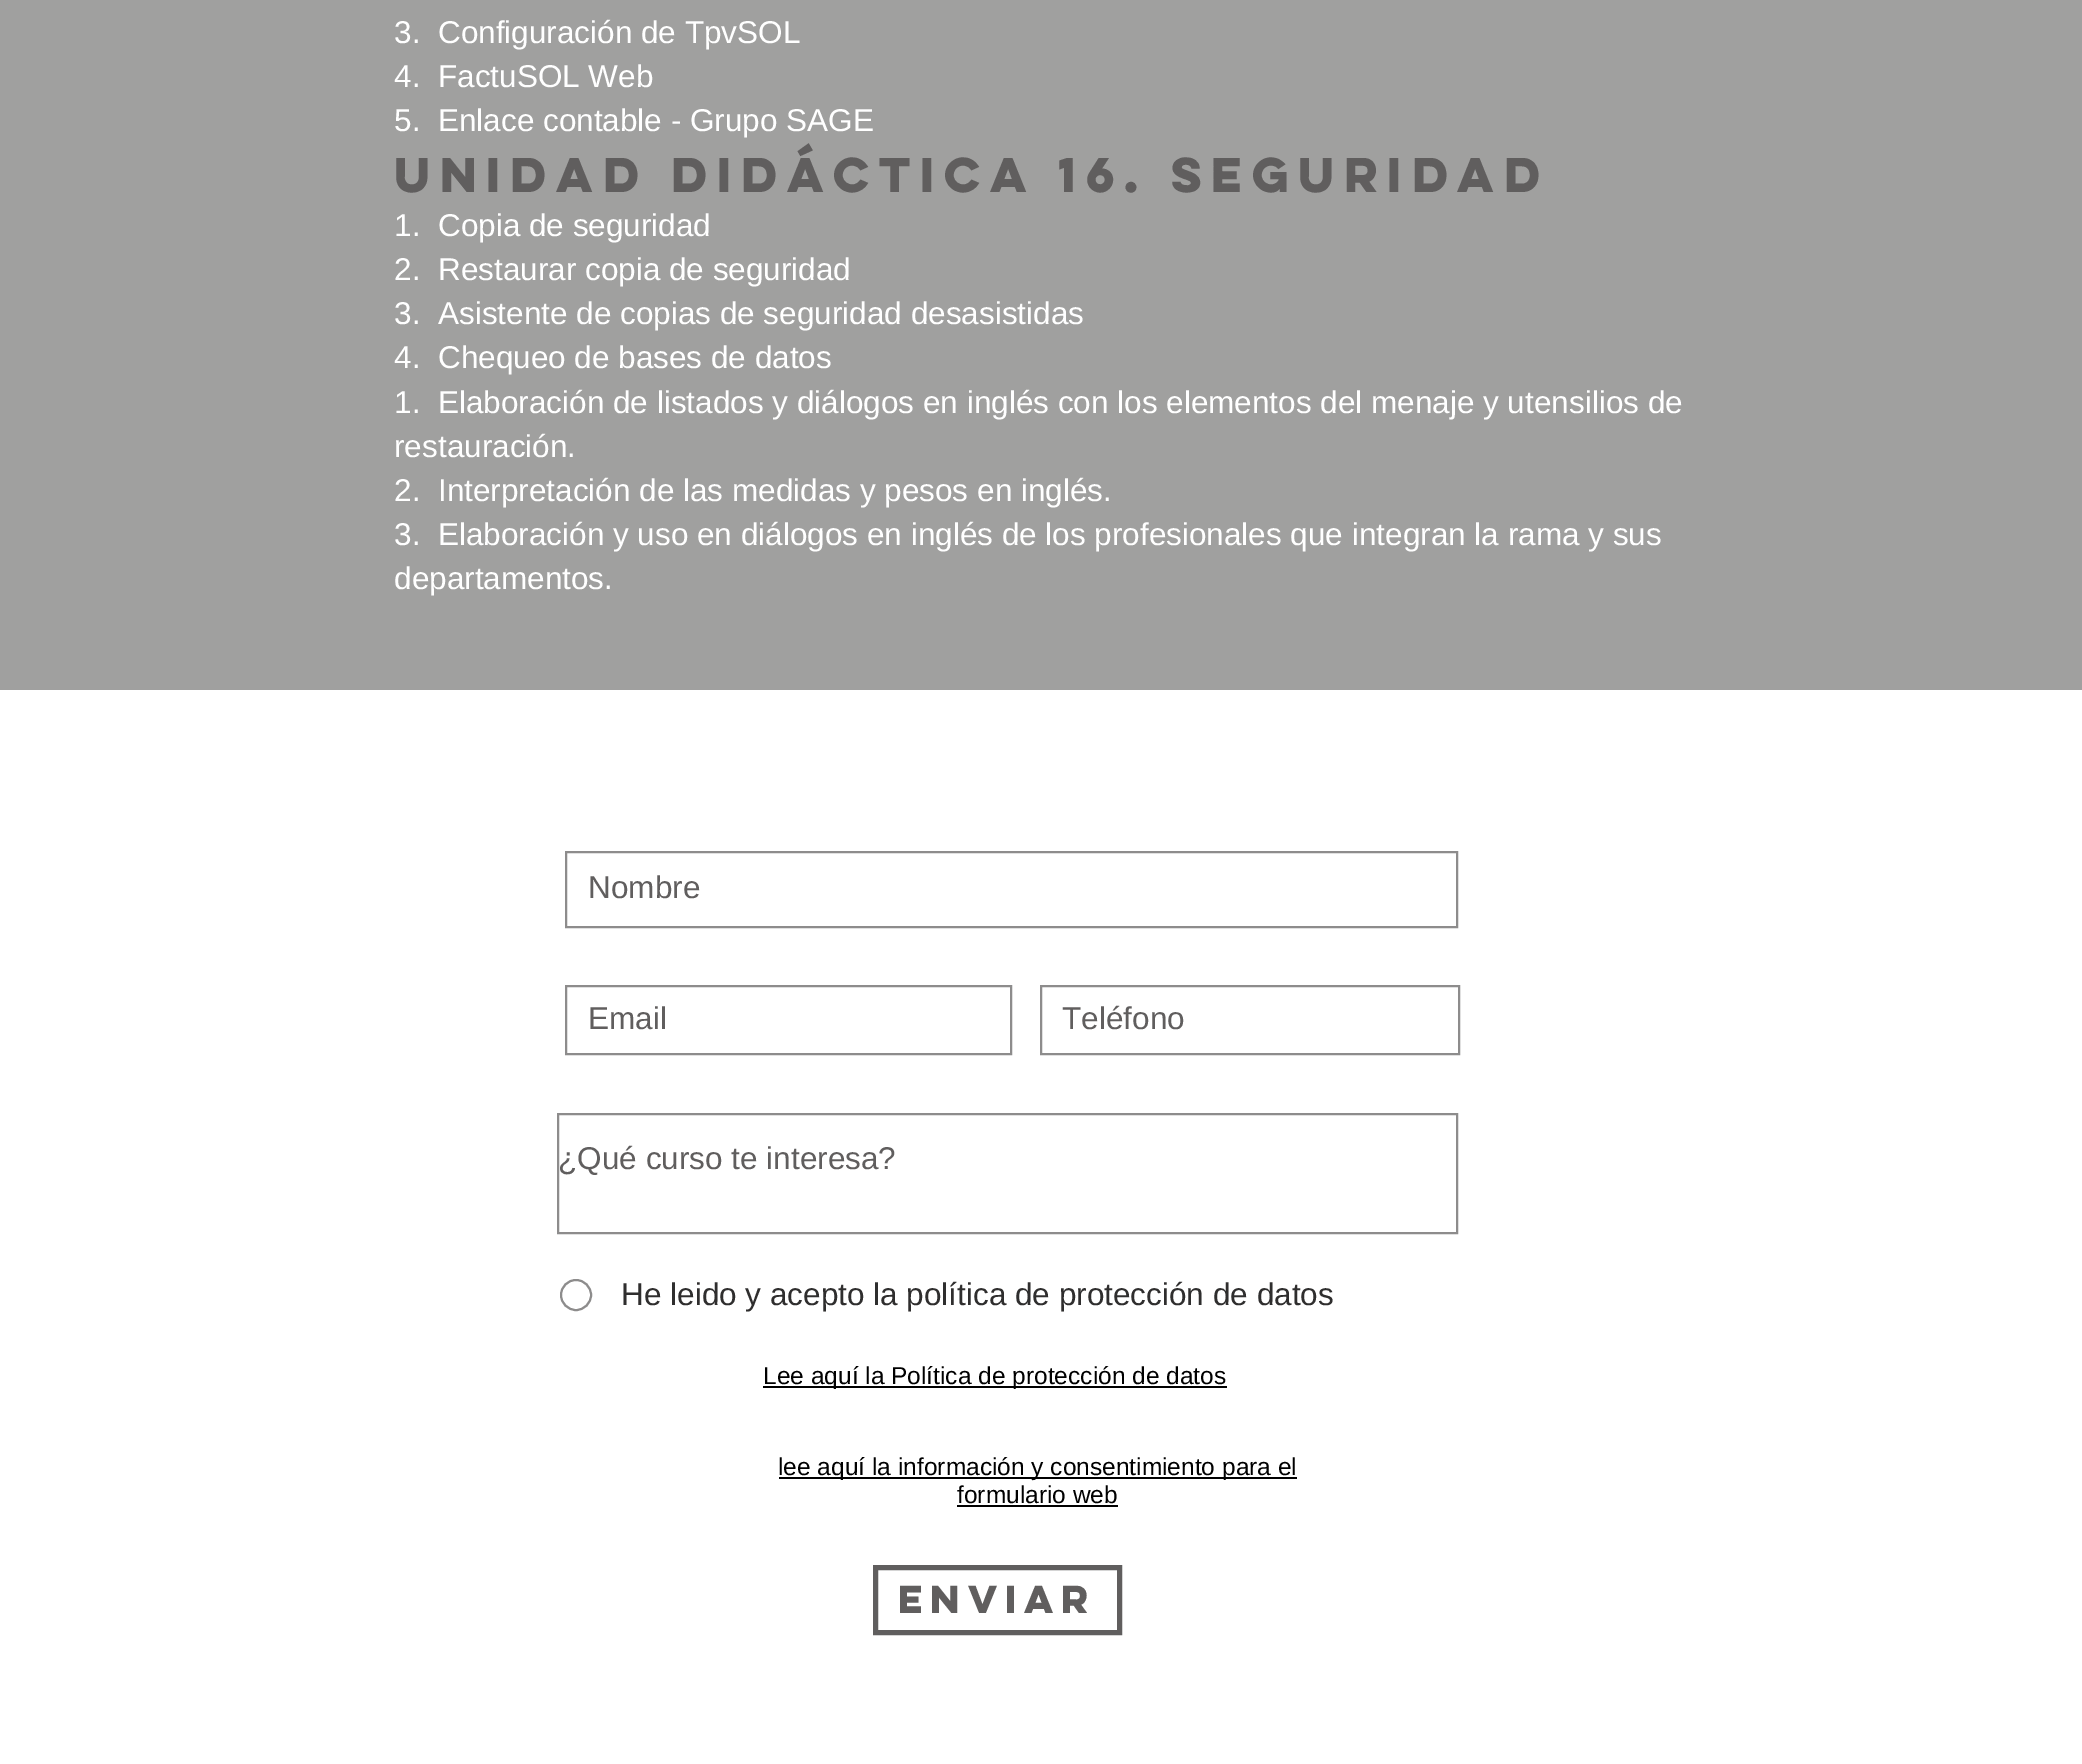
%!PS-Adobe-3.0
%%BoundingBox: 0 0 2082 1764
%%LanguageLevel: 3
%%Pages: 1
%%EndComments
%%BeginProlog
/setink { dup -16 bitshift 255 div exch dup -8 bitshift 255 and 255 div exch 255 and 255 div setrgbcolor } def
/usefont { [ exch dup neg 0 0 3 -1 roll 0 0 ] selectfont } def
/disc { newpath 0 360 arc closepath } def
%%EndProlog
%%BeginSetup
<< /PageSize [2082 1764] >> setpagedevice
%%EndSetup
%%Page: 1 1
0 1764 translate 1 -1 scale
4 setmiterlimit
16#FFFFFF setink
0 0 2082 1764 rectfill
16#A0A09F setink
0 0 2082 690 rectfill
/LiberationSans-Regular 31.5 usefont
16#FFFFFF setink
[
    [(3.  Configuración de TpvSOL) 394 43]
    [(4.  FactuSOL Web) 394 87]
    [(5.  Enlace contable - Grupo SAGE) 394 131]
] { aload pop moveto show } forall
/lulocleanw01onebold-Bold 43.75 usefont
16#605E5E setink
394 192 moveto (UNIDAD DIDÁCTICA 16. SEGURIDAD) show
/LiberationSans-Regular 31.5 usefont
16#FFFFFF setink
[
    [(1.  Copia de seguridad) 394 236]
    [(2.  Restaurar copia de seguridad) 394 280]
    [(3.  Asistente de copias de seguridad desasistidas) 394 324]
    [(4.  Chequeo de bases de datos) 394 368]
    [(1.  Elaboración de listados y diálogos en inglés con los elementos del menaje y utensilios de) 394 413]
    [(restauración.) 394 457]
    [(2.  Interpretación de las medidas y pesos en inglés.) 394 501]
    [(3.  Elaboración y uso en diálogos en inglés de los profesionales que integran la rama y sus) 394 545]
    [(departamentos.) 394 589]
] { aload pop moveto show } forall
16#8D8C8C setink
2 setlinewidth
566 852 891 75 rectstroke
16#605E5E setink
588 898 moveto (Nombre) show
16#8D8C8C setink
566 986 445 68 rectstroke
16#605E5E setink
588 1029 moveto (Email) show
16#8D8C8C setink
1041 986 418 68 rectstroke
16#605E5E setink
1062 1029 moveto (Teléfono) show
16#8D8C8C setink
558 1114 899 119 rectstroke
16#605E5E setink
558 1169 moveto (¿Qué curso te interesa?) show
16#8D8C8C setink
576 1295 15 disc stroke
16#2F2E2E setink
621 1305 moveto (He leido y acepto la política de protección de datos) show
16#000000 setink
763 1386 464 2 rectfill
/LiberationSans-Regular 24.5 usefont
763 1384 moveto (Lee aquí la Política de protección de datos) show
779 1477 518 2 rectfill
778 1475 moveto (lee aquí la información y consentimiento para el) show
957 1503 moveto (formulario web) show
957 1505 161 2 rectfill
16#605E5E setink
5 setlinewidth
875.5 1567.5 244 65 rectstroke
/lulocleanw01onebold-Bold 35 usefont
898 1613 moveto (Enviar) show
showpage
%%EOF
